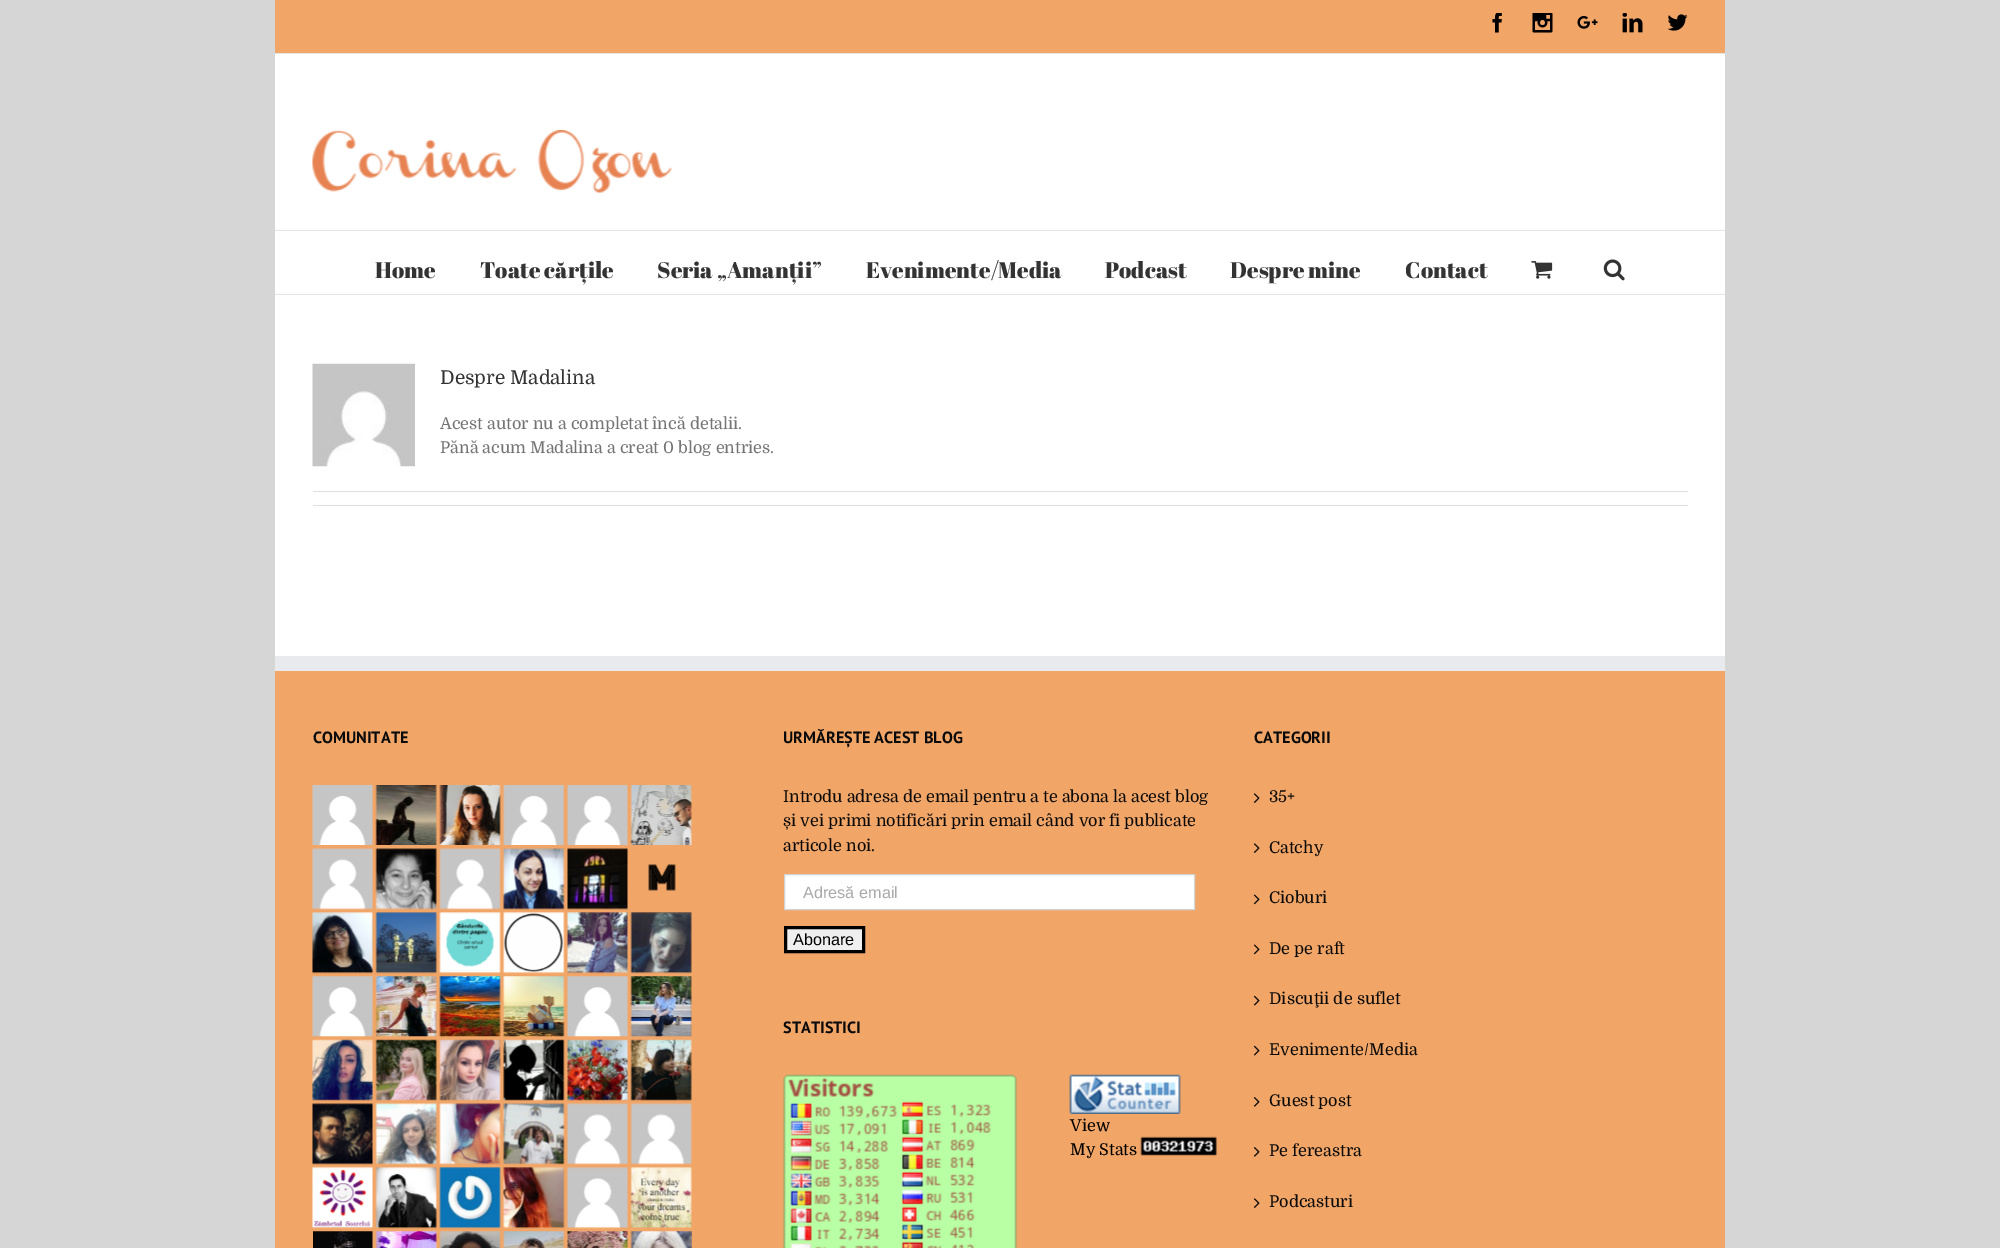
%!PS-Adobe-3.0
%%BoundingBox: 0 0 2000 1248
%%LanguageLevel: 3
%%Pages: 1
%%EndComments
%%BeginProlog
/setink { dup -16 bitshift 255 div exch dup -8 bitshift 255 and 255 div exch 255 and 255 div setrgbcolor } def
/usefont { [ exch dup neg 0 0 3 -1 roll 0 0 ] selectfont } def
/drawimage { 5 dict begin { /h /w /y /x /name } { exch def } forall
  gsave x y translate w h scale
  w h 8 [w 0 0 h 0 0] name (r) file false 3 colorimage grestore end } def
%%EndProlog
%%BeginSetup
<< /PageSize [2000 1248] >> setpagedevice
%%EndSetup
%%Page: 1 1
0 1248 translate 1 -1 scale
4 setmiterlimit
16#D7D6D6 setink
0 0 2000 1248 rectfill
16#F1A567 setink
275 0 1450 53 rectfill
16#E5E5E5 setink
275 53 1450 1 rectfill
(img1.raw) 1492 13 10 20 drawimage
(img2.raw) 1532 13 21 20 drawimage
(img3.raw) 1577 16 21 13 drawimage
(img4.raw) 1622 13 21 20 drawimage
(img5.raw) 1667 14 21 17 drawimage
16#FFFFFF setink
275 54 1450 176 rectfill
16#E5E5E5 setink
275 230 1450 1 rectfill
(img6.raw) 312 130 360 63 drawimage
16#FFFFFF setink
275 231 1450 63 rectfill
16#E5E5E5 setink
275 294 1450 1 rectfill
/AbrilFatface-Regular 22.5 usefont
16#333333 setink
[
    [(Home) 375 278]
    [(Toate cărțile) 480 278]
    [(Seria „Amanții”) 657 278]
    [(Evenimente/Media) 866 278]
    [(Podcast) 1105 278]
    [(Despre mine) 1230 278]
    [(Contact) 1405 278]
] { aload pop moveto show } forall
(img7.raw) 1531 261 22 18 drawimage
(img8.raw) 1603 259 22 22 drawimage
16#FFFFFF setink
275 295 1450 361 rectfill
(img9.raw) 312 363 103 104 drawimage
/Domine-Regular 19 usefont
16#333333 setink
440 384 moveto (Despre Madalina) show
/Domine-Regular 16.25 usefont
16#747474 setink
440 429 moveto (Acest autor nu a completat încă detalii.) show
440 453 moveto (Pănă acum Madalina a creat 0 blog entries.) show
[
    [313 491 1375 1 16#E0DEDE]
    [313 505 1375 1 16#E0DEDE]
    [275 671 1450 577 16#F1A567]
    [275 656 1450 15 16#E9EAEE]
] { aload pop setink rectfill } forall
/PTSans-Bold 16.25 usefont
16#0A0A0A setink
313 743 moveto (COMUNITATE) show
(img10.raw) 312 785 61 60 drawimage
(img11.raw) 375 785 62 60 drawimage
(img12.raw) 439 785 62 60 drawimage
(img13.raw) 503 785 62 60 drawimage
(img14.raw) 567 785 61 60 drawimage
(img15.raw) 630 785 62 60 drawimage
(img16.raw) 312 848 61 62 drawimage
(img17.raw) 375 848 62 62 drawimage
(img18.raw) 439 848 62 62 drawimage
(img19.raw) 503 848 62 62 drawimage
(img20.raw) 567 848 61 62 drawimage
(img21.raw) 648 864 28 27 drawimage
(img22.raw) 312 912 61 62 drawimage
(img23.raw) 375 912 62 62 drawimage
(img24.raw) 439 912 62 62 drawimage
(img25.raw) 503 912 62 62 drawimage
(img26.raw) 567 912 61 62 drawimage
(img27.raw) 630 912 62 62 drawimage
(img28.raw) 312 976 61 61 drawimage
(img29.raw) 375 976 62 61 drawimage
(img30.raw) 439 976 62 61 drawimage
(img31.raw) 503 976 62 61 drawimage
(img32.raw) 567 976 61 61 drawimage
(img33.raw) 630 976 62 61 drawimage
(img34.raw) 312 1039 61 62 drawimage
(img35.raw) 375 1039 62 62 drawimage
(img36.raw) 439 1039 62 62 drawimage
(img37.raw) 503 1039 62 62 drawimage
(img38.raw) 567 1039 61 62 drawimage
(img39.raw) 630 1039 62 62 drawimage
(img40.raw) 312 1103 61 62 drawimage
(img41.raw) 375 1103 62 62 drawimage
(img42.raw) 439 1103 62 62 drawimage
(img43.raw) 503 1103 62 62 drawimage
(img44.raw) 567 1103 61 62 drawimage
(img45.raw) 630 1103 62 62 drawimage
(img46.raw) 312 1167 61 62 drawimage
(img47.raw) 375 1167 62 62 drawimage
(img48.raw) 439 1167 62 62 drawimage
(img49.raw) 503 1167 62 62 drawimage
(img50.raw) 567 1167 61 62 drawimage
(img51.raw) 630 1167 62 62 drawimage
(img52.raw) 313 1231 60 17 drawimage
(img53.raw) 375 1231 62 17 drawimage
(img54.raw) 439 1231 62 17 drawimage
(img55.raw) 503 1231 62 17 drawimage
(img56.raw) 567 1231 61 17 drawimage
(img57.raw) 630 1231 62 17 drawimage
783 743 moveto (URMĂREȘTE ACEST BLOG) show
/Domine-Regular 16.25 usefont
[
    [(Introdu adresa de email pentru a te abona la acest blog) 783 802]
    [(și vei primi notificări prin email când vor fi publicate) 783 826]
    [(articole noi.) 783 851]
] { aload pop moveto show } forall
16#FFFFFF setink
784.5 874.5 moveto 1194.5 874.5 lineto 1194.5 909.5 lineto 784.5 909.5 lineto closepath gsave fill grestore
16#D2D2D2 setink
stroke
/LiberationSans-Regular 16.25 usefont
16#AAA9A9 setink
803 898 moveto (Adresă email) show
16#EFEFEF setink
785.5 927.5 moveto 863.5 927.5 lineto 863.5 951.5 lineto 785.5 951.5 lineto closepath gsave fill grestore
16#000000 setink
3 setlinewidth
stroke
793 945 moveto (Abonare) show
/PTSans-Bold 16.25 usefont
16#0A0A0A setink
783 1033 moveto (STATISTICI) show
(img58.raw) 783 1074 234 174 drawimage
(img59.raw) 1069 1074 112 40 drawimage
/Domine-Regular 16.25 usefont
16#000000 setink
1070 1131 moveto (View) show
1070 1155 moveto (My Stats) show
(img60.raw) 1140 1136 77 20 drawimage
/PTSans-Bold 16.25 usefont
16#0A0A0A setink
1254 743 moveto (CATEGORII) show
(img61.raw) 1253 793 7 10 drawimage
/Domine-Regular 16.25 usefont
1269 802 moveto (35+) show
(img61.raw) 1253 843 7 10 drawimage
1269 853 moveto (Catchy) show
(img62.raw) 1253 894 7 11 drawimage
1269 903 moveto (Cioburi) show
(img62.raw) 1253 944 7 11 drawimage
1269 954 moveto (De pe raft) show
(img63.raw) 1253 995 7 11 drawimage
1269 1004 moveto (Discuţii de suflet) show
(img63.raw) 1253 1045 7 11 drawimage
1269 1055 moveto (Evenimente/Media) show
(img64.raw) 1253 1097 7 10 drawimage
1269 1106 moveto (Guest post) show
(img64.raw) 1253 1147 7 10 drawimage
1269 1156 moveto (Pe fereastra) show
(img61.raw) 1253 1198 7 10 drawimage
1269 1207 moveto (Podcasturi) show
showpage
%%EOF
